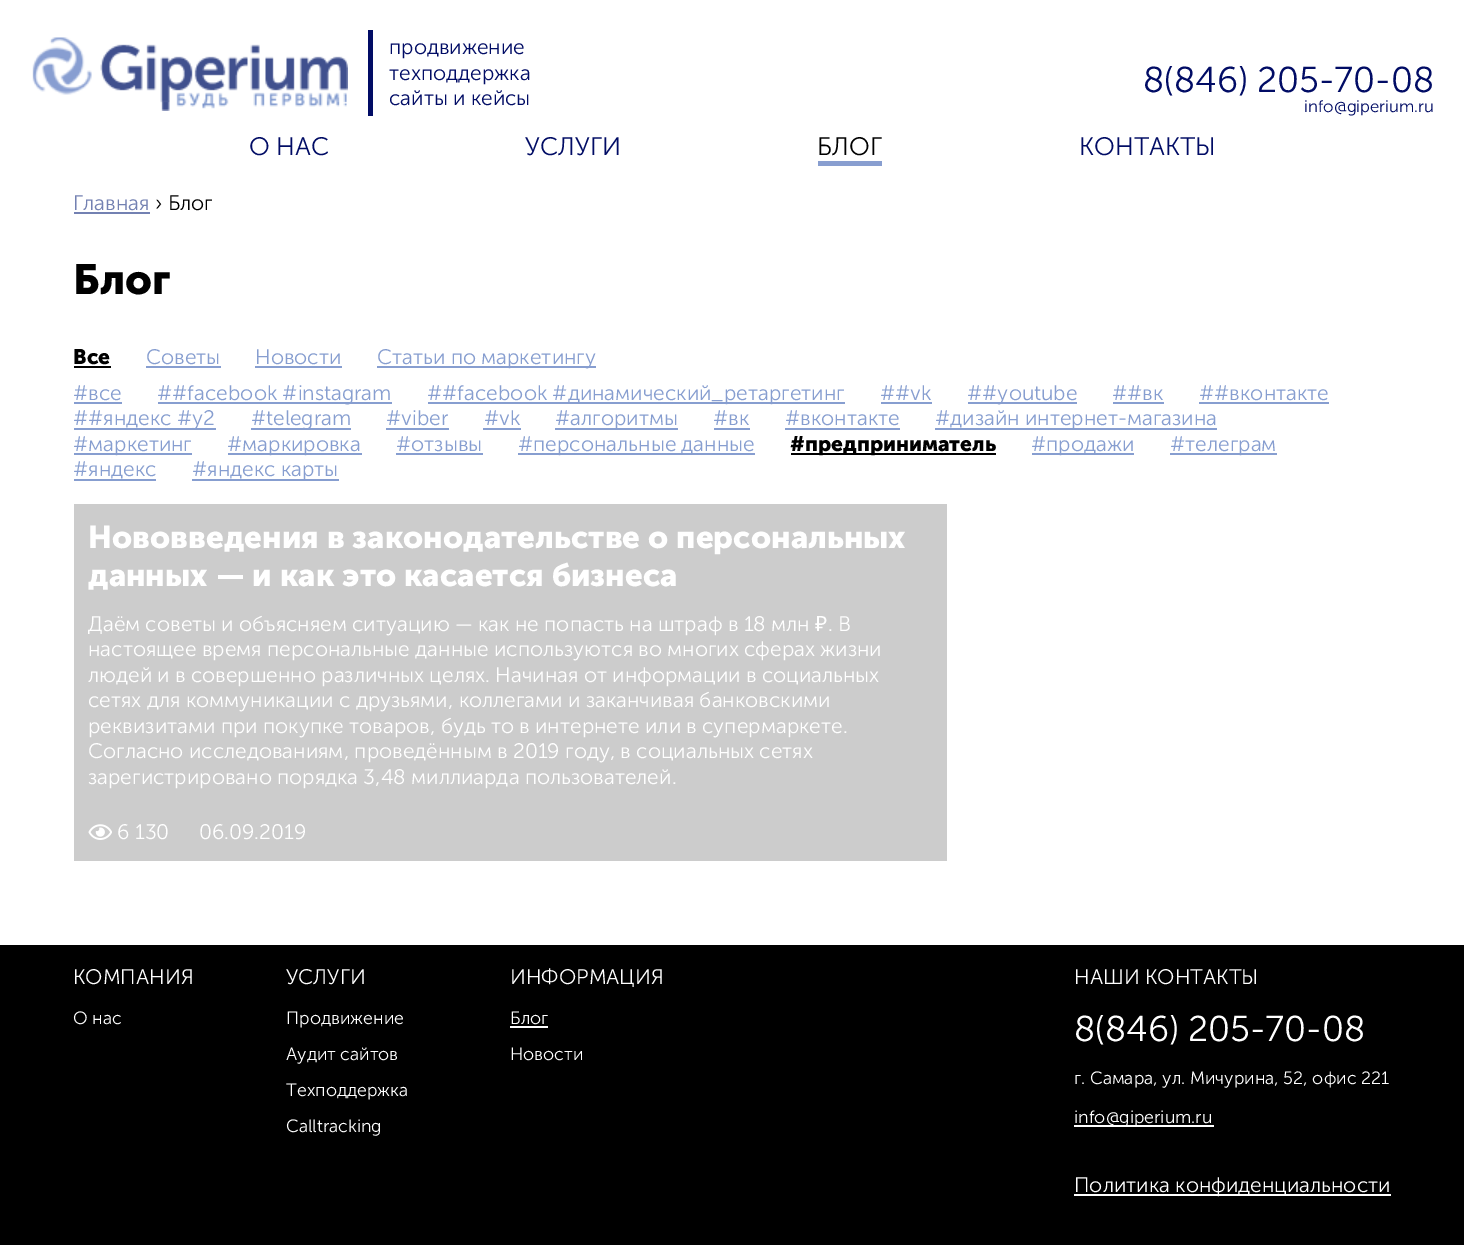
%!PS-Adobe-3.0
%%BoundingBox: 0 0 1464 1245
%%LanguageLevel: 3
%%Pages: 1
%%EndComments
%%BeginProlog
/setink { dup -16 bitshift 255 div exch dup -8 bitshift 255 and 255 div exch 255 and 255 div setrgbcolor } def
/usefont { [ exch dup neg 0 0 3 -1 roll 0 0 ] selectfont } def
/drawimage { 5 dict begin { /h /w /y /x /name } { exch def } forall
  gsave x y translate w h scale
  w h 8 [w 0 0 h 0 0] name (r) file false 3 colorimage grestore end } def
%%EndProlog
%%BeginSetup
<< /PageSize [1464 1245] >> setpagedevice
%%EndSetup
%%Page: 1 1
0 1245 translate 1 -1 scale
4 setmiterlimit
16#FFFFFF setink
0 0 1464 1245 rectfill
(img1.raw) 32 37 316 74 drawimage
16#010C65 setink
368 30 5 86 rectfill
/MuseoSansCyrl-Light 21 usefont
[
    [(продвижение) 389 54]
    [(техподдержка) 389 80]
    [(сайты и кейсы) 389 105]
] { aload pop moveto show } forall
/MuseoSansCyrl-Light 35.75 usefont
1143 92 moveto (8\(846\) 205-70-08) show
/MuseoSansCyrl-Light 16.75 usefont
1304 112 moveto (info@giperium.ru) show
/MuseoSansCyrl-Light 25.25 usefont
249 155 moveto (О НАС) show
525 155 moveto (УСЛУГИ) show
16#000000 setink
817 155 moveto (БЛОГ) show
16#889ED0 setink
818 161 64 5 rectfill
16#010C65 setink
1079 155 moveto (КОНТАКТЫ) show
/MuseoSansCyrl-Light 21 usefont
16#7381B2 setink
73 210 moveto (Главная) show
74 212 76 2 rectfill
16#000000 setink
155 210 moveto (› Блог) show
/MuseoSansCyrl-Bold 42 usefont
73 294 moveto (Блог) show
/MuseoSansCyrl-Bold 21 usefont
73 364 moveto (Все) show
74 366 37 2 rectfill
/MuseoSansCyrl-Light 21 usefont
16#879ED0 setink
146 364 moveto (Советы) show
146 366 75 2 rectfill
255 364 moveto (Новости) show
255 366 87 2 rectfill
377 366 219 2 rectfill
377 364 moveto (Статьи по маркетингу) show
73 400 moveto (#все) show
74 402 48 2 rectfill
158 402 234 2 rectfill
157 400 moveto (##facebook #instagram) show
428 402 417 2 rectfill
427 400 moveto (##facebook #динамический_ретаргетинг) show
880 400 moveto (##vk) show
881 402 51 2 rectfill
968 402 109 2 rectfill
967 400 moveto (##youtube) show
1112 400 moveto (##вк) show
1113 402 51 2 rectfill
1199 400 moveto (##вконтакте) show
1199 402 130 2 rectfill
74 428 142 2 rectfill
73 425 moveto (##яндекс #y2) show
251 428 100 2 rectfill
251 425 moveto (#telegram) show
386 425 moveto (#viber) show
386 428 63 2 rectfill
484 425 moveto (#vk) show
483 428 38 2 rectfill
555 428 123 2 rectfill
555 425 moveto (#алгоритмы) show
713 425 moveto (#вк) show
714 428 36 2 rectfill
785 425 moveto (#вконтакте) show
785 428 115 2 rectfill
935 428 282 2 rectfill
935 425 moveto (#дизайн интернет-магазина) show
74 453 118 2 rectfill
73 451 moveto (#маркетинг) show
228 453 134 2 rectfill
227 451 moveto (#маркировка) show
396 451 moveto (#отзывы) show
396 453 87 2 rectfill
518 453 237 2 rectfill
518 451 moveto (#персональные данные) show
16#000000 setink
791 453 205 2 rectfill
/MuseoSansCyrl-Bold 21 usefont
790 451 moveto (#предприниматель) show
16#879ED0 setink
1032 453 102 2 rectfill
/MuseoSansCyrl-Light 21 usefont
1031 451 moveto (#продажи) show
1170 453 107 2 rectfill
1170 451 moveto (#телеграм) show
73 476 moveto (#яндекс) show
74 479 82 2 rectfill
192 479 147 2 rectfill
192 476 moveto (#яндекс карты) show
16#CCCCCC setink
74 504 873 357 rectfill
/MuseoSansCyrl-Bold 31.5 usefont
16#FFFFFF setink
88 548 moveto (Нововведения в законодательстве о персональных) show
88 586 moveto (данных — и как это касается бизнеса) show
/MuseoSansCyrl-Light 21 usefont
88 631 moveto (Даём советы и объясняем ситуацию — как не попасть на штраф в 18 млн) show
/NotoSans-Regular 21 usefont
815 631 moveto (₽) show
/MuseoSansCyrl-Light 21 usefont
[
    [(. В) 828 631]
    [(настоящее время персональные данные используются во многих сферах жизни) 88 656]
    [(людей и в совершенно различных целях. Начиная от информации в социальных) 88 682]
    [(сетях для коммуникации с друзьями, коллегами и заканчивая банковскими) 88 707]
    [(реквизитами при покупке товаров, будь то в интернете или в супермаркете.) 88 733]
    [(Согласно исследованиям, проведённым в 2019 году, в социальных сетях) 88 758]
    [(зарегистрировано порядка 3,48 миллиарда пользователей.) 88 784]
] { aload pop moveto show } forall
(img2.raw) 88 824 24 16 drawimage
117 839 moveto (6 130) show
199 839 moveto (06.09.2019) show
16#000000 setink
0 945 1464 300 rectfill
16#FFFFFF setink
73 984 moveto (КОМПАНИЯ) show
/MuseoSansCyrl-Light 17.8 usefont
73 1024 moveto (О нас) show
/MuseoSansCyrl-Light 21 usefont
286 984 moveto (УСЛУГИ) show
/MuseoSansCyrl-Light 17.8 usefont
[
    [(Продвижение) 286 1024]
    [(Аудит сайтов) 286 1060]
    [(Техподдержка) 286 1096]
    [(Calltracking) 286 1132]
] { aload pop moveto show } forall
/MuseoSansCyrl-Light 21 usefont
510 984 moveto (ИНФОРМАЦИЯ) show
/MuseoSansCyrl-Light 17.8 usefont
510 1024 moveto (Блог) show
510 1026 38 2 rectfill
510 1060 moveto (Новости) show
/MuseoSansCyrl-Light 21 usefont
1074 984 moveto (НАШИ КОНТАКТЫ) show
/MuseoSansCyrl-Light 35.75 usefont
1074 1041 moveto (8\(846\) 205-70-08) show
/MuseoSansCyrl-Light 17.8 usefont
1074 1084 moveto (г. Самара, ул. Мичурина, 52, офис 221) show
1074 1125 140 2 rectfill
1074 1123 moveto (info@giperium.ru) show
1074 1194 317 2 rectfill
/MuseoSansCyrl-Light 21 usefont
1074 1192 moveto (Политика конфиденциальности) show
showpage
%%EOF
